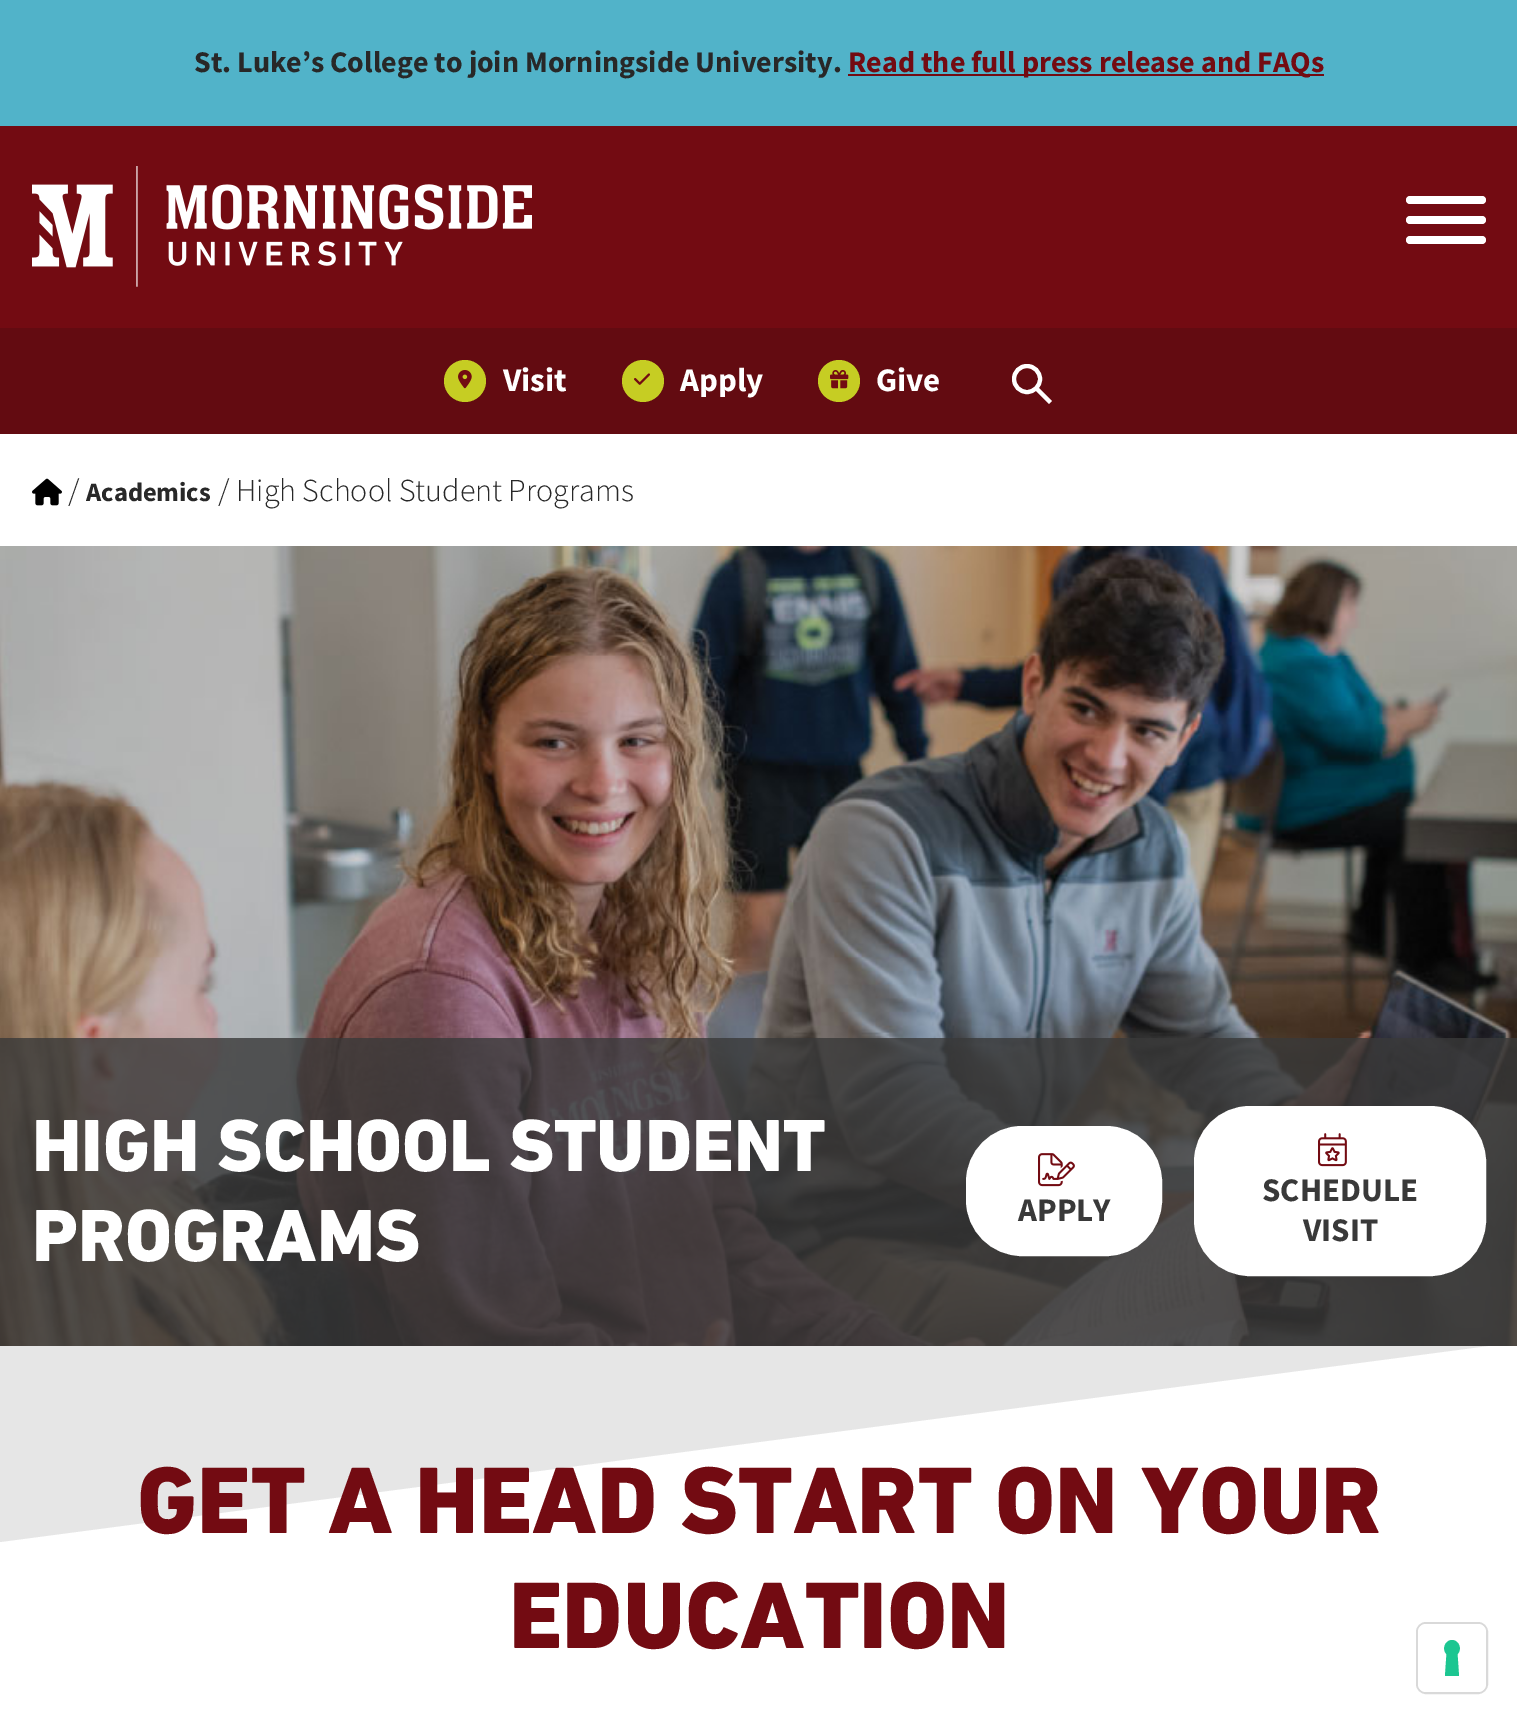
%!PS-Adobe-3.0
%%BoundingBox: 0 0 1517 1724
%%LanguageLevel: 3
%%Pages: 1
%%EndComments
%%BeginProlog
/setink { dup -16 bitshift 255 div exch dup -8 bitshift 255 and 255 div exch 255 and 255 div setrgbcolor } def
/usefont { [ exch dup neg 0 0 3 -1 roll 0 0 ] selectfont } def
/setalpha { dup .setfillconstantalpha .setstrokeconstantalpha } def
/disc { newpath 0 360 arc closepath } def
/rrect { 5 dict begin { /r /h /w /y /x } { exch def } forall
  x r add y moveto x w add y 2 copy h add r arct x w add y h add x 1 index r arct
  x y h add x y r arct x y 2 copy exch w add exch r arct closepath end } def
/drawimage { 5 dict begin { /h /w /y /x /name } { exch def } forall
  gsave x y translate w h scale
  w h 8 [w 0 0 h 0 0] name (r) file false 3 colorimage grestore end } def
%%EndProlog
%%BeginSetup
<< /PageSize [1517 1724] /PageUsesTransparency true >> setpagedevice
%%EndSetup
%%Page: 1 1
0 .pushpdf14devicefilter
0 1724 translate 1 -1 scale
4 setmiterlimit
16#FFFFFF setink
0 0 1517 1724 rectfill
16#51B3C9 setink
0 0 1517 126 rectfill
/SourceSansPro-Bold 30 usefont
16#282828 setink
194 72 moveto (St. Luke’s College to join Morningside University.) show
16#730B12 setink
848 74 476 2 rectfill
848 72 moveto (Read the full press release and FAQs) show
0 126 1517 202 rectfill
(img1.raw) 32 166 500 121 drawimage
16#FFFFFF setink
1406 196 80 8 4 rrect fill
1406 216 80 8 4 rrect fill
1406 236 80 8 4 rrect fill
16#630B11 setink
0 328 1517 106 rectfill
16#C6CD23 setink
465 381 21 disc fill
(img2.raw) 458 370 14 19 drawimage
/SourceSansPro-Bold 33 usefont
16#FFFFFF setink
503 391 moveto (Visit) show
16#C6CD23 setink
643 381 21 disc fill
(img3.raw) 634 373 16 12 drawimage
16#FFFFFF setink
680 391 moveto (Apply) show
16#C6CD23 setink
839 381 21 disc fill
(img4.raw) 830 370 19 19 drawimage
16#FFFFFF setink
876 391 moveto (Give) show
4.1 setlinewidth
1027 379 13 disc stroke
2 setlinecap
1037 389 moveto 1049 401 lineto stroke
(img5.raw) 32 478 30 28 drawimage
/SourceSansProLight-Light 32 usefont
16#282828 setink
68 501 moveto (/) show
/SourceSansPro-Bold 26.5 usefont
86 501 moveto (Academics) show
/SourceSansProLight-Light 32 usefont
218 501 moveto (/ High School Student Programs) show
16#E6E6E6 setink
0 1342 moveto 0 1542 lineto 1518 1342 lineto closepath fill
(img6.raw) 0 546 1517 800 drawimage
0.8 setalpha
16#393939 setink
0 1038 1517 308 rectfill
/DinNext-Black 75 usefont
1 setalpha
16#FFFFFF setink
32 1171 moveto (HIGH SCHOOL STUDENT) show
32 1261 moveto (PROGRAMS) show
968 1128 192 126 54 rrect gsave fill grestore
4 setlinewidth
0 setlinecap
stroke
(img7.raw) 1038 1153 37 34 drawimage
/SourceSansPro-Bold 33 usefont
16#393939 setink
1018 1221 moveto (APPLY) show
16#FFFFFF setink
1196 1108 288 166 54 rrect gsave fill grestore
stroke
(img8.raw) 1318 1133 29 34 drawimage
16#393939 setink
1262 1201 moveto (SCHEDULE) show
1303 1241 moveto (VISIT) show
/DinNext-Black 96 usefont
16#730B12 setink
137 1533 moveto (GET A HEAD START ON YOUR) show
509 1648 moveto (EDUCATION) show
16#D9D9D9 setink
2 setlinewidth
1417 1623 70 70 9 rrect stroke
16#FFFFFF setink
1418 1624 68 68 8 rrect fill
16#1CC691 setink
1452 1640 moveto 1459 1640 1462.5 1649.5 1457.5 1654 curveto 1459 1676 lineto 1445 1676 lineto 1446.5 1654 lineto 1441.5 1649.5 1445 1640 1452 1640 curveto closepath eofill
.poppdf14devicefilter showpage
%%EOF
